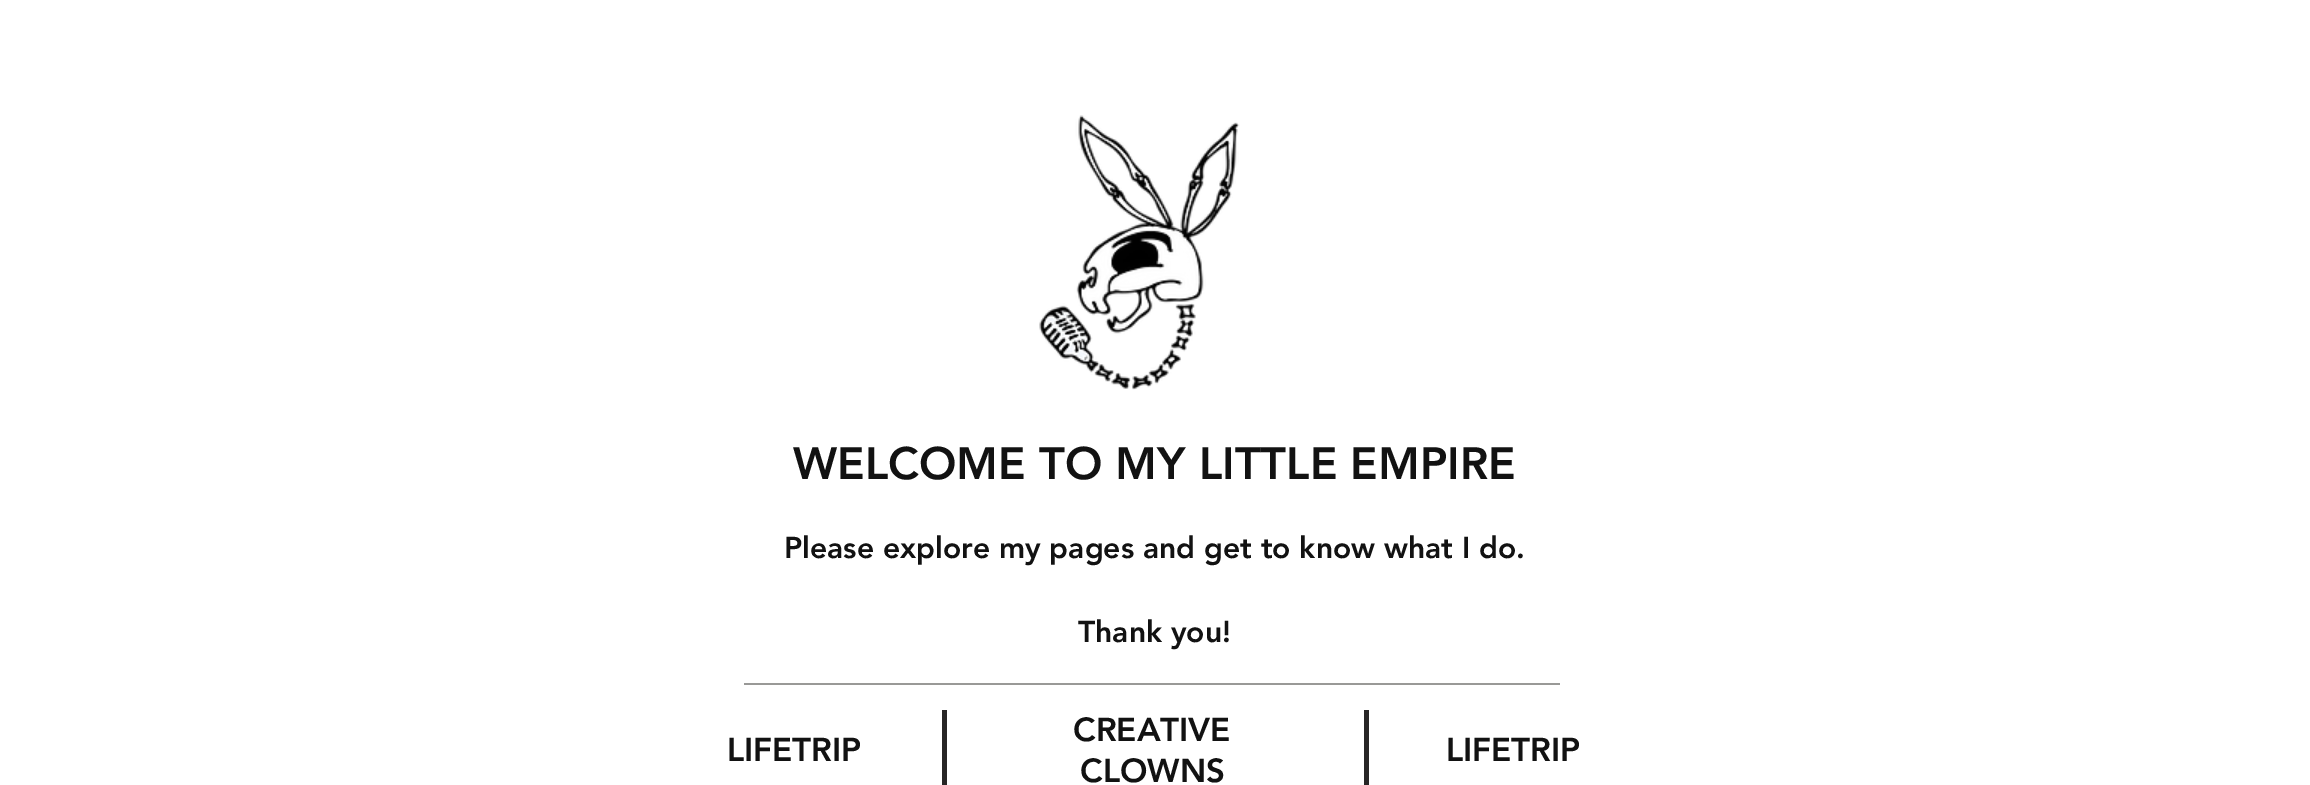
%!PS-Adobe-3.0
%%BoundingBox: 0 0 2310 785
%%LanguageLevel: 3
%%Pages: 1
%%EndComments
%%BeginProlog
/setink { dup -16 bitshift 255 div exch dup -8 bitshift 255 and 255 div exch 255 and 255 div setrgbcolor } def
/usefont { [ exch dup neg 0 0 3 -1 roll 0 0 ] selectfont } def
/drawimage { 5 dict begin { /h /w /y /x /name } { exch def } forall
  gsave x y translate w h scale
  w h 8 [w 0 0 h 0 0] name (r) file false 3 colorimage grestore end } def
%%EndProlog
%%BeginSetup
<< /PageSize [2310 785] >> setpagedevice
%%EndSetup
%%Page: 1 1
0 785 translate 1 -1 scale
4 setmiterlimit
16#FFFFFF setink
0 0 2310 785 rectfill
(img1.raw) 1039 115 201 275 drawimage
/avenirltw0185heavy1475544-Black 45 usefont
16#121212 setink
793 479 moveto (WELCOME TO MY LITTLE EMPIRE) show
/avenirltw0185heavy1475544-Black 30 usefont
784 558 moveto (Please explore my pages and get to know what I do.) show
1078 642 moveto (Thank you!) show
16#999997 setink
744 683 816 2 rectfill
/avenirltw0185heavy1475544-Black 33 usefont
16#121212 setink
727 761 moveto (LIFETRIP) show
16#282626 setink
942 710 5 75 rectfill
16#121212 setink
1073 741 moveto (CREATIVE) show
1080 782 moveto (CLOWNS) show
16#282626 setink
1364 710 5 75 rectfill
16#121212 setink
1446 761 moveto (LIFETRIP) show
showpage
%%EOF
